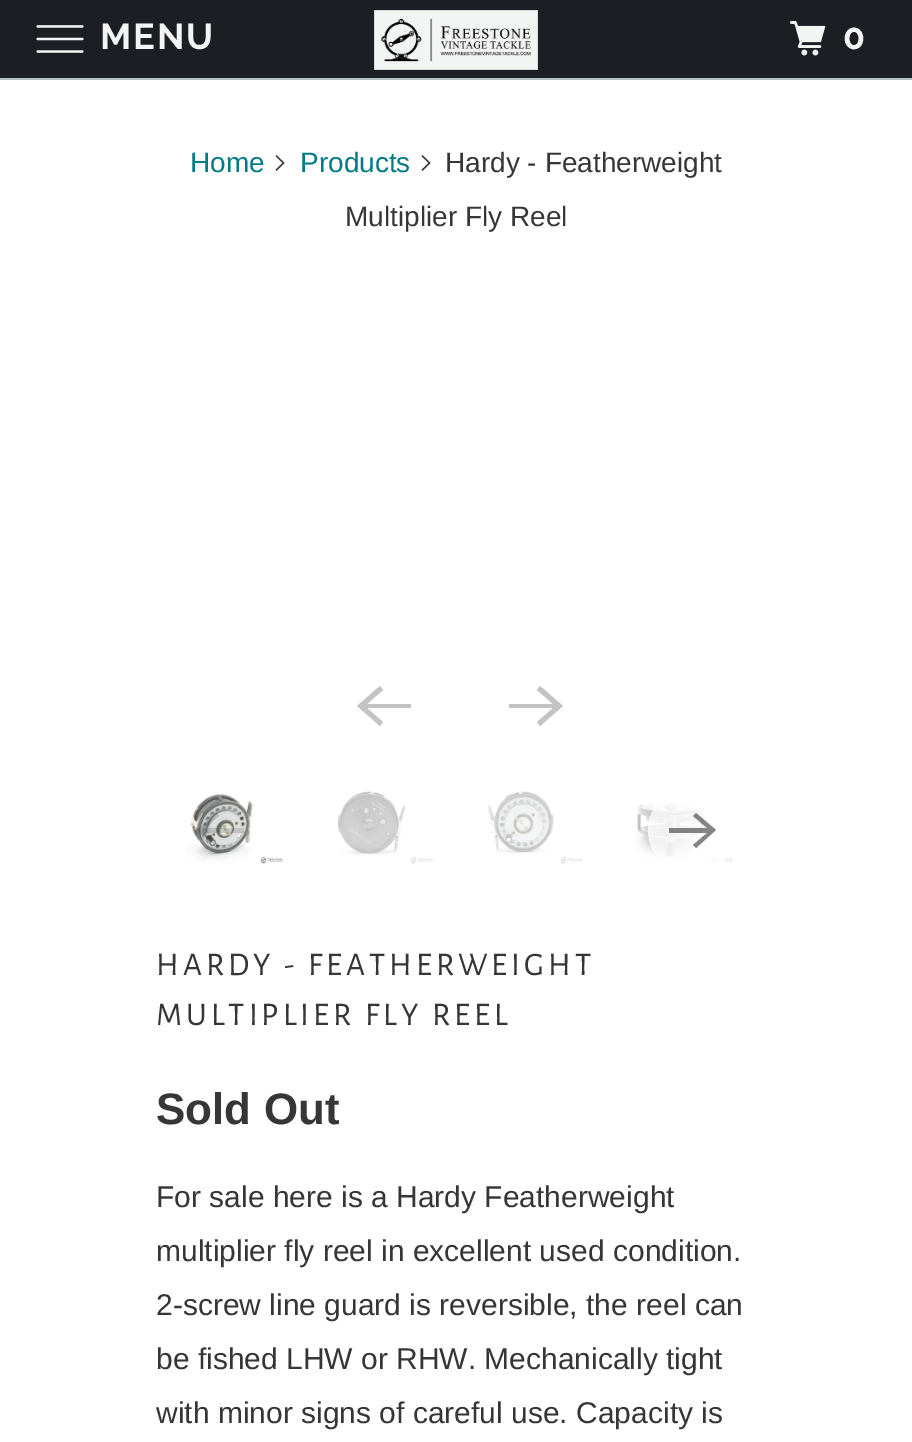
%!PS-Adobe-3.0
%%BoundingBox: 0 0 912 1442
%%LanguageLevel: 3
%%Pages: 1
%%EndComments
%%BeginProlog
/setink { dup -16 bitshift 255 div exch dup -8 bitshift 255 and 255 div exch 255 and 255 div setrgbcolor } def
/usefont { [ exch dup neg 0 0 3 -1 roll 0 0 ] selectfont } def
/setalpha { dup .setfillconstantalpha .setstrokeconstantalpha } def
/disc { newpath 0 360 arc closepath } def
/drawimage { 5 dict begin { /h /w /y /x /name } { exch def } forall
  gsave x y translate w h scale
  w h 8 [w 0 0 h 0 0] name (r) file false 3 colorimage grestore end } def
%%EndProlog
%%BeginSetup
<< /PageSize [912 1442] /PageUsesTransparency true >> setpagedevice
%%EndSetup
%%Page: 1 1
0 .pushpdf14devicefilter
0 1442 translate 1 -1 scale
4 setmiterlimit
16#1B1F23 setink
0 0 912 1442 rectfill
16#B0BEBE setink
0 78 912 2 rectfill
(img1.raw) 36 25 48 28 drawimage
/Raleway-Bold 36 usefont
16#F4F4F4 setink
100 49 moveto 2 0 (MENU) ashow
(img2.raw) 374 10 164 60 drawimage
(img3.raw) 790 21 36 35 drawimage
843 49 moveto 2 0 (0) ashow
16#FFFFFF setink
0 80 912 1362 rectfill
/LiberationSans-Regular 28 usefont
16#007A87 setink
190 172 moveto (Home) show
(img4.raw) 275 155 10 16 drawimage
300 172 moveto (Products) show
(img4.raw) 421 155 10 16 drawimage
16#363636 setink
445 172 moveto (Hardy - Featherweight) show
345 226 moveto (Multiplier Fly Reel) show
16#C3C3C3 setink
411 704 moveto 367 704 lineto 383 690 lineto 380 686 lineto 357 706 lineto 380 726 lineto 383 722 lineto 367 708 lineto 411 708 lineto closepath fill
509 708 moveto 553 708 lineto 537 722 lineto 540 726 lineto 563 706 lineto 540 686 lineto 537 690 lineto 553 704 lineto 509 704 lineto closepath fill
(img5.raw) 185 793 98 71 drawimage
0.22 setalpha
16#FFFFFF setink
220 830 44 disc fill
0.18 setalpha
16#333333 setink
244 828 moveto 205 828 lineto 219 816 lineto 217 813 lineto 197 830 lineto 217 848 lineto 219 845 lineto 205 833 lineto 244 833 lineto closepath fill
1 setalpha
(img8.raw) 635 802 98 62 drawimage
0.75 setalpha
16#FFFFFF setink
692 830 44 disc fill
0.6 setalpha
16#333333 setink
669 833 moveto 707 833 lineto 693 845 lineto 696 848 lineto 716 830 lineto 696 813 lineto 693 816 lineto 707 828 lineto 669 828 lineto closepath fill
1 setalpha
(img6.raw) 337 791 96 73 drawimage
(img7.raw) 487 791 96 73 drawimage
/AlegreyaSans-Regular 33 usefont
16#363636 setink
156 975 moveto 4 0 (HARDY - FEATHERWEIGHT) ashow
156 1025 moveto 4 0 (MULTIPLIER FLY REEL) ashow
/LiberationSans-Bold 44 usefont
156 1124 moveto (Sold Out) show
/LiberationSans-Regular 30 usefont
[
    [(For sale here is a Hardy Featherweight) 156 1207]
    [(multiplier fly reel in excellent used condition.) 156 1261]
    [(2-screw line guard is reversible, the reel can) 156 1315]
    [(be fished LHW or RHW. Mechanically tight) 156 1369]
    [(with minor signs of careful use. Capacity is) 156 1423]
] { aload pop moveto show } forall
.poppdf14devicefilter showpage
%%EOF
